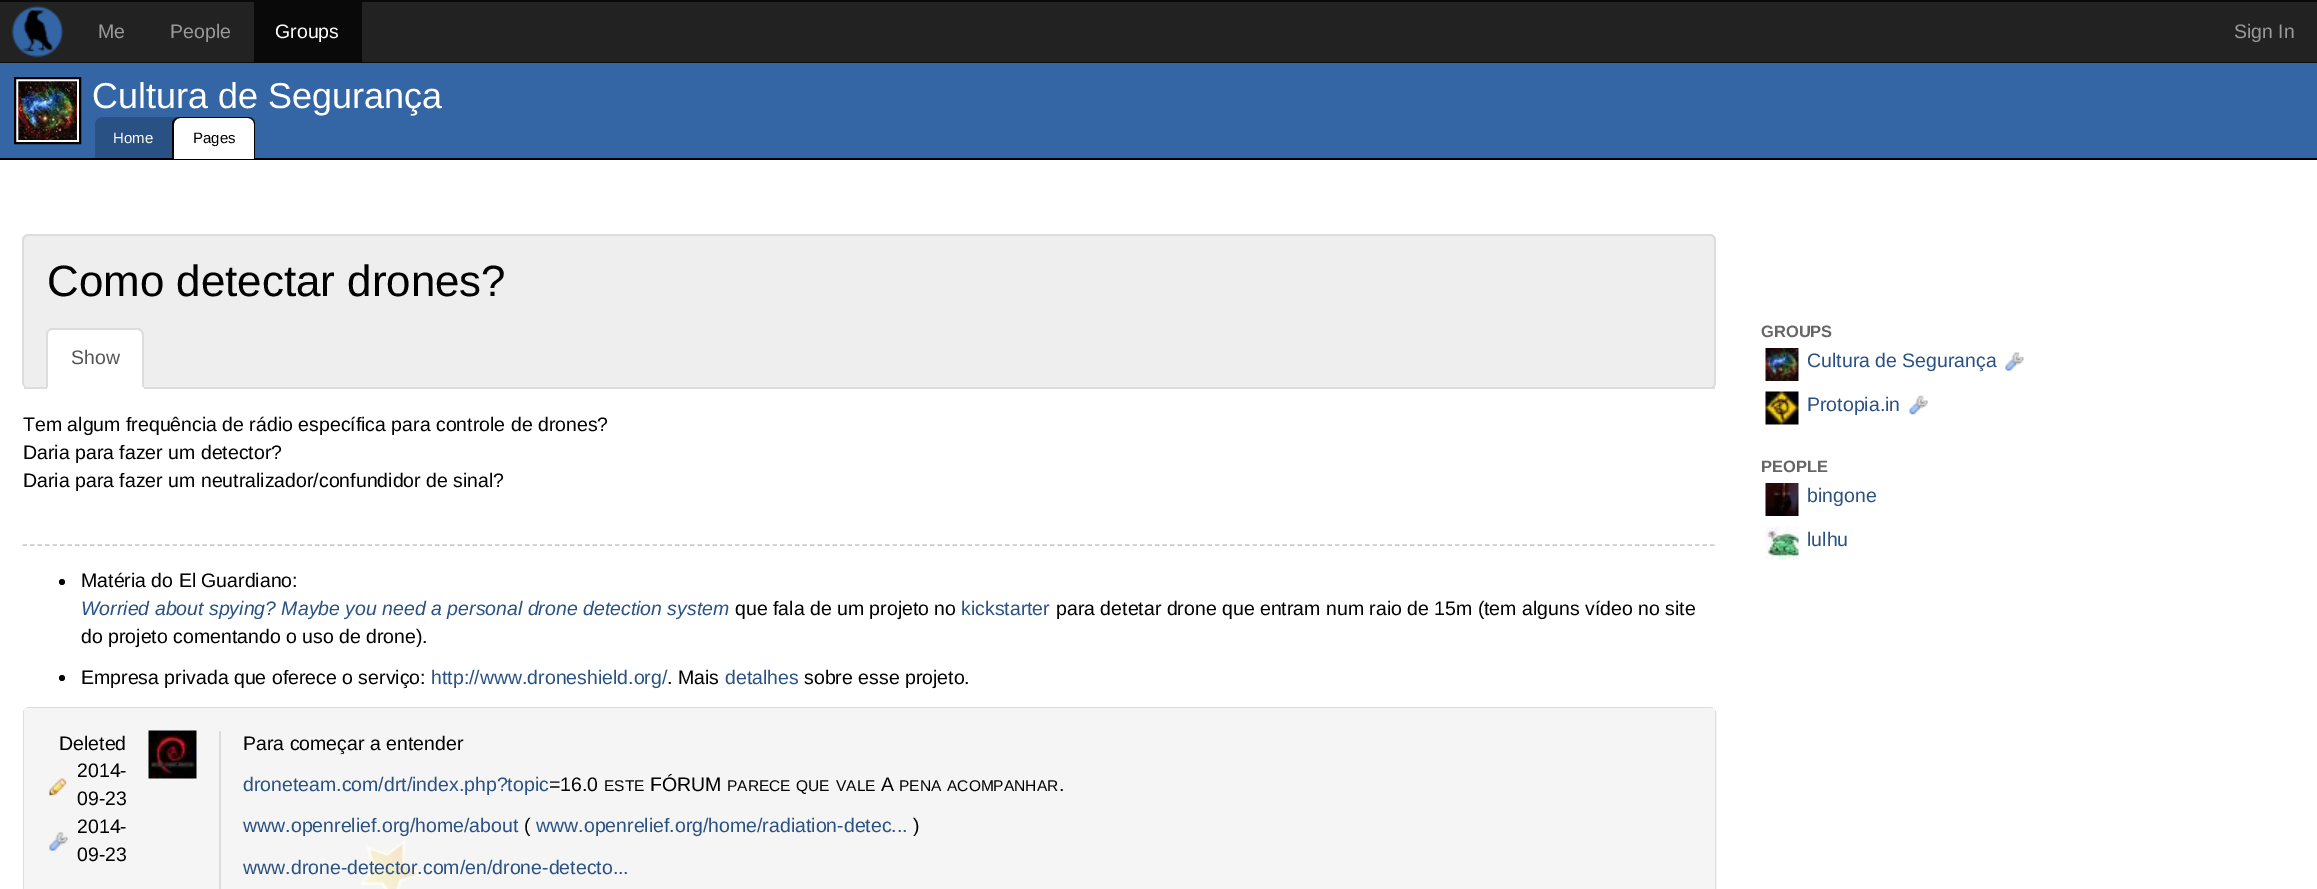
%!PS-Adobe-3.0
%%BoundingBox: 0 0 2317 889
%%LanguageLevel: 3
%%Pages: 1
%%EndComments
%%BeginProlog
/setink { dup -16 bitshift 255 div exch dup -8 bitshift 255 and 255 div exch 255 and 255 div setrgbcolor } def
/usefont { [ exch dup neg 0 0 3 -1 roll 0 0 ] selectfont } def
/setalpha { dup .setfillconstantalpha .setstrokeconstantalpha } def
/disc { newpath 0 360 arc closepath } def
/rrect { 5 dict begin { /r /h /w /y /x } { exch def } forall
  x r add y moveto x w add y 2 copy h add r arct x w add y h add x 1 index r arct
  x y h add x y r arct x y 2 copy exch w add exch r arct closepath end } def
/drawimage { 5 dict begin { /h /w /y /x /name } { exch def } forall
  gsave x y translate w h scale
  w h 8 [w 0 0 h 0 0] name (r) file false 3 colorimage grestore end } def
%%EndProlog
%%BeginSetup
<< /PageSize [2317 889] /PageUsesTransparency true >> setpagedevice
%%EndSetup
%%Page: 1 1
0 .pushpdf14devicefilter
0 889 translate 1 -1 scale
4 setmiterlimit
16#FFFFFF setink
0 0 2317 889 rectfill
[
    [0 2 2317 60 16#222222]
    [0 0 2317 2 16#090909]
    [0 62 2317 1 16#090909]
] { aload pop setink rectfill } forall
(img1.raw) 11 5 53 53 drawimage
/LiberationSans-Regular 19.5 usefont
16#999999 setink
98 38 moveto (Me) show
170 38 moveto (People) show
16#090909 setink
254 2 108 60 rectfill
16#FFFFFF setink
275 38 moveto (Groups) show
16#999999 setink
2234 38 moveto (Sign In) show
16#3465A4 setink
0 63 2317 95 rectfill
16#000000 setink
0 158 2317 2 rectfill
(img2.raw) 18 81 59 59 drawimage
16#FFFFFF setink
3 setlinewidth
16.5 79.5 62 62 rectstroke
16#000000 setink
2 setlinewidth
15 78 65 65 rectstroke
/LiberationSans-Regular 36 usefont
16#FFFFFF setink
92 108 moveto (Cultura de Segurança) show
0.2 setalpha
16#000000 setink
103 117 moveto 173 117 lineto 173 159 lineto 95 159 lineto 95 125 lineto 95 120.5 98.5 117 103 117 curveto closepath fill
/LiberationSans-Regular 15 usefont
1 setalpha
16#FFFFFF setink
113 143 moveto (Home) show
0.2 setalpha
16#000000 setink
173 117 moveto 247 117 lineto 251.5 117 255 120.5 255 125 curveto 255 159 lineto 173 159 lineto closepath fill
1 setalpha
16#FFFFFF setink
181 117 moveto 247 117 lineto 251.5 117 255 120.5 255 125 curveto 255 159 lineto 173 159 lineto 173 125 lineto 173 120.5 176.5 117 181 117 curveto closepath fill
16#000000 setink
180 117 moveto 248 117 lineto 252 117 255 120 255 124 curveto 255 159 lineto 172 159 lineto 172 124 lineto 172 120 176 117 180 117 curveto closepath 180 118 moveto 248 118 lineto 251 118 254 121 254 124 curveto 254 159 lineto 174 159 lineto 174 124 lineto 174 121 177 118 180 118 curveto closepath eofill
193 143 moveto (Pages) show
16#EEEEEE setink
23 234 1693 155 6 rrect fill
16#DDDDDD setink
28 234 moveto 1710 234 lineto 1713 234 1716 237 1716 240 curveto 1716 382 lineto 1716 386 1713 388 1710 388 curveto 28 388 lineto 25 388 22 386 22 382 curveto 22 240 lineto 22 237 25 234 28 234 curveto closepath 28 236 moveto 1710 236 lineto 1712 236 1714 238 1714 240 curveto 1714 382 lineto 1714 386 1712 388 1710 388 curveto 28 388 lineto 26 388 24 386 24 382 curveto 24 240 lineto 24 238 26 236 28 236 curveto closepath eofill
/LiberationSans-Regular 43.9 usefont
16#000000 setink
47 296 moveto (Como detectar drones?) show
16#DDDDDD setink
24 387 1691 2 rectfill
16#FFFFFF setink
53 329 moveto 138 329 lineto 141.5 329 144 331.5 144 335 curveto 144 389 lineto 47 389 lineto 47 335 lineto 47 331.5 49.5 329 53 329 curveto closepath fill
16#DDDDDD setink
52 330 moveto 49 331 lineto 48 330 lineto 50 328 lineto 140 328 lineto 142 330 lineto 141 332 lineto 140 331 139 330 138 330 curveto closepath fill
144 388 moveto 144 334 lineto 144 333 143 331 142 330 curveto 141 332 lineto 142 334 lineto 142 386 lineto closepath fill
46 332 moveto 48 330 lineto 49 331 lineto 48 334 lineto 48 387 lineto 47 388 lineto 46 388 lineto closepath fill
/LiberationSans-Regular 19.5 usefont
16#555555 setink
71 364 moveto (Show) show
16#000000 setink
[
    [(Tem algum frequência de rádio específica para controle de drones?) 23 431]
    [(Daria para fazer um detector?) 23 459]
    [(Daria para fazer um neutralizador/confundidor de sinal?) 23 487]
] { aload pop moveto show } forall
16#CCCCCC setink
1.5 setlinewidth
[4.5 3] 0 setdash
22.5 545 moveto 1716 545 lineto stroke
16#000000 setink
62 582 3 disc fill
81 587 moveto (Matéria do El Guardiano:) show
/LiberationSans-Italic 19.5 usefont
16#2A5183 setink
81 615 moveto (Worried about spying? Maybe you need a personal drone detection system) show
/LiberationSans-Regular 19.5 usefont
16#000000 setink
735 615 moveto (que fala de um projeto no) show
16#2A5183 setink
961 615 moveto (kickstarter) show
16#000000 setink
1056 615 moveto (para detetar drone que entram num raio de 15m \(tem alguns vídeo no site) show
81 643 moveto (do projeto comentando o uso de drone\).) show
62 678 3 disc fill
81 684 moveto (Empresa privada que oferece o serviço:) show
16#2A5183 setink
431 684 moveto (http://www.droneshield.org/) show
16#000000 setink
667 684 moveto (. Mais) show
16#2A5183 setink
725 684 moveto (detalhes) show
16#000000 setink
804 684 moveto (sobre esse projeto.) show
16#DDDDDD setink
2 setlinewidth
[] 0 setdash
24 708 1691 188 5 rrect stroke
16#F5F5F5 setink
24 708 1691 181 rectfill
(img3.raw) 148 730 49 49 drawimage
16#000000 setink
59 750 moveto (Deleted) show
(img4.raw) 49 778 18 18 drawimage
77 777 moveto (2014-) show
77 805 moveto (09-23) show
(img5.raw) 49 832 19 19 drawimage
77 833 moveto (2014-) show
77 861 moveto (09-23) show
16#DDDDDD setink
219 731 2 158 rectfill
16#000000 setink
243 750 moveto (Para começar a entender) show
16#2A5183 setink
243 791 moveto (droneteam.com/drt/index.php?topic) show
16#000000 setink
549 791 moveto (=16.0) show
/LiberationSans-Regular 15.5 usefont
604 791 moveto (ESTE) show
/LiberationSans-Regular 19.5 usefont
650 791 moveto (FÓRUM) show
/LiberationSans-Regular 15.5 usefont
[
    [(PARECE) 727 791]
    [(QUE) 796 791]
    [(VALE) 836 791]
] { aload pop moveto show } forall
/LiberationSans-Regular 19.5 usefont
881 791 moveto (A) show
/LiberationSans-Regular 15.5 usefont
899 791 moveto (PENA) show
947 791 moveto (ACOMPANHAR) show
/LiberationSans-Regular 19.5 usefont
1059 791 moveto (.) show
16#2A5183 setink
243 832 moveto (www.openrelief.org/home/about) show
16#000000 setink
524 832 moveto (\() show
16#2A5183 setink
536 832 moveto (www.openrelief.org/home/radiation-detec...) show
16#000000 setink
913 832 moveto (\)) show
(img6.raw) 360 840 62 49 drawimage
16#2A5183 setink
243 874 moveto (www.drone-detector.com/en/drone-detecto...) show
/LiberationSans-Bold 16.5 usefont
16#666666 setink
1761 337 moveto (GROUPS) show
(img7.raw) 1765 348 34 33 drawimage
/LiberationSans-Regular 19.5 usefont
16#2A5183 setink
1807 367 moveto (Cultura de Segurança) show
(img8.raw) 2005 352 19 19 drawimage
(img9.raw) 1765 391 34 34 drawimage
1807 411 moveto (Protopia.in) show
(img10.raw) 1909 395 19 20 drawimage
/LiberationSans-Bold 16.5 usefont
16#666666 setink
1761 472 moveto (PEOPLE) show
(img11.raw) 1765 483 34 33 drawimage
/LiberationSans-Regular 19.5 usefont
16#2A5183 setink
1807 502 moveto (bingone) show
(img12.raw) 1765 526 34 34 drawimage
1807 546 moveto (lulhu) show
.poppdf14devicefilter showpage
%%EOF
